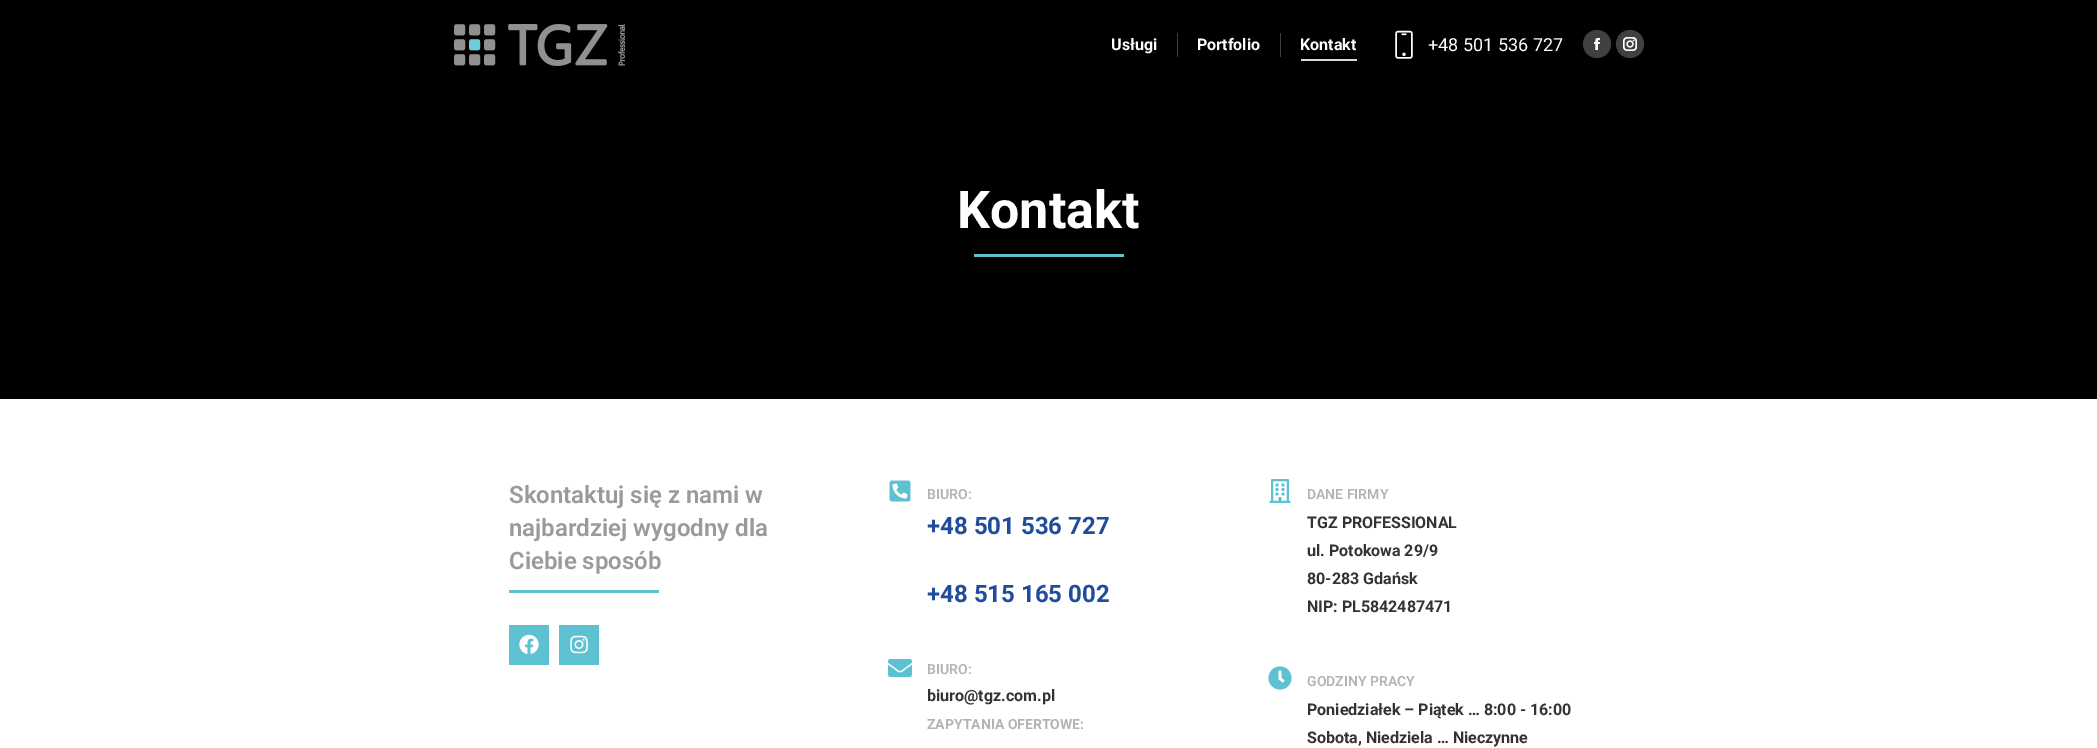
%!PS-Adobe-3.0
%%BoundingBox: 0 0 2097 748
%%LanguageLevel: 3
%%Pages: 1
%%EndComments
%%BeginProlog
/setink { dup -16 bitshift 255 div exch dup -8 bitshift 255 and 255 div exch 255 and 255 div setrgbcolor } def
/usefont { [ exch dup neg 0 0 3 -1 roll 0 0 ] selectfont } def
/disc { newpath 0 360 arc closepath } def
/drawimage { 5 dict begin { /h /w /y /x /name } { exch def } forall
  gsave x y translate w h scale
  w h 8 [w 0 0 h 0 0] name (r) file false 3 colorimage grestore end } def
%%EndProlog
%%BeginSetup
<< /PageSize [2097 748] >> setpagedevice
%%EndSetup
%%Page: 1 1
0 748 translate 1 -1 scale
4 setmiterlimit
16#FFFFFF setink
0 0 2097 748 rectfill
16#000000 setink
0 0 2097 399 rectfill
(img1.raw) 454 24 171 42 drawimage
/Roboto-Bold 16 usefont
16#FFFFFF setink
1111 50 moveto (Usługi) show
16#404040 setink
1177 33 1 24 rectfill
16#FFFFFF setink
1197 50 moveto (Portfolio) show
16#404040 setink
1280 33 1 24 rectfill
16#FFFFFF setink
1300 50 moveto (Kontakt) show
16#D9D9D9 setink
1301 59 56 2 rectfill
(img2.raw) 1395 30 18 29 drawimage
/Roboto-Regular 18 usefont
16#FFFFFF setink
1428 51 moveto (+48 501 536 727) show
16#404040 setink
1597 44 14 disc fill
(img3.raw) 1594 38 6 12 drawimage
1630 44 14 disc fill
(img4.raw) 1623 37 14 14 drawimage
/Roboto-Bold 52 usefont
16#FFFFFF setink
957 228 moveto (Kontakt) show
16#5DC1D2 setink
974 254 150 3 rectfill
/Roboto-SemiBold 24 usefont
16#9A9A9A setink
[
    [(Skontaktuj się z nami w) 509 503]
    [(najbardziej wygodny dla) 509 536]
    [(Ciebie sposób) 509 569]
] { aload pop moveto show } forall
16#5DC1D2 setink
509 590 150 3 rectfill
509 625 40 40 rectfill
(img5.raw) 519 634 20 20 drawimage
559 625 40 40 rectfill
(img6.raw) 570 635 18 19 drawimage
(img7.raw) 889 480 22 22 drawimage
/Roboto-SemiBold 14 usefont
16#B3B3B3 setink
927 499 moveto (BIURO:) show
/Roboto-Bold 24 usefont
16#1F4C9B setink
927 534 moveto (+48 501 536 727) show
927 602 moveto (+48 515 165 002) show
(img8.raw) 888 659 24 18 drawimage
/Roboto-SemiBold 14 usefont
16#B3B3B3 setink
927 674 moveto (BIURO:) show
/Roboto-Bold 16 usefont
16#333333 setink
927 701 moveto (biuro@tgz.com.pl) show
/Roboto-Bold 14 usefont
16#B3B3B3 setink
927 729 moveto (ZAPYTANIA OFERTOWE:) show
(img9.raw) 1269 479 22 24 drawimage
/Roboto-SemiBold 14 usefont
1307 499 moveto (DANE FIRMY) show
/Roboto-Bold 16 usefont
16#333333 setink
[
    [(TGZ PROFESSIONAL) 1307 528]
    [(ul. Potokowa 29/9) 1307 556]
    [(80-283 Gdańsk) 1307 584]
    [(NIP: PL5842487471) 1307 612]
] { aload pop moveto show } forall
(img10.raw) 1268 666 24 24 drawimage
/Roboto-SemiBold 14 usefont
16#B3B3B3 setink
1307 686 moveto (GODZINY PRACY) show
/Roboto-Bold 16 usefont
16#333333 setink
1307 715 moveto (Poniedziałek – Piątek … 8:00 - 16:00) show
1307 743 moveto (Sobota, Niedziela … Nieczynne) show
showpage
%%EOF
